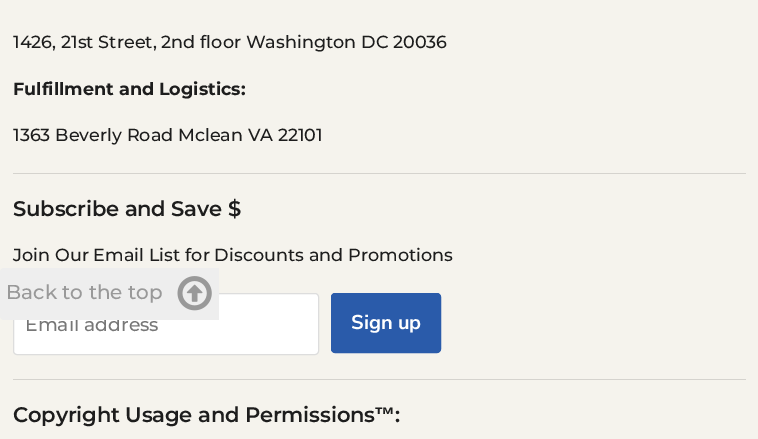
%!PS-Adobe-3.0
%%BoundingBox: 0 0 758 439
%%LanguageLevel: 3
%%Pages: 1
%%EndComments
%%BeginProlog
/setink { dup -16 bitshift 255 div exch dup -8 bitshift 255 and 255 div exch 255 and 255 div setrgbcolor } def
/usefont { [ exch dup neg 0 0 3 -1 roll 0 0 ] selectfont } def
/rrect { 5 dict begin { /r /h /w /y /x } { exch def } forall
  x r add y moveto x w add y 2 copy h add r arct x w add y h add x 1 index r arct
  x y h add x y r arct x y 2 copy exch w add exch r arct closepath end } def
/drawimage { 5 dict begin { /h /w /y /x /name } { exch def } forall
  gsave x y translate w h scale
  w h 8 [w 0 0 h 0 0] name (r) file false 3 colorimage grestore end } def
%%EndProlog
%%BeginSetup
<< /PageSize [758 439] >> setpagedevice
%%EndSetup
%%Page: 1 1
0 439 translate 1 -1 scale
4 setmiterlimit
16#F5F3ED setink
0 0 758 439 rectfill
16#D5D3CE setink
13 173 733 1 rectfill
/Montserrat-Medium 17.6 usefont
16#1D1D1D setink
13 48 moveto (1426, 21st Street, 2nd floor Washington DC 20036) show
/Montserrat-Bold 17.6 usefont
13 95 moveto (Fulfillment and Logistics:) show
/Montserrat-Medium 17.6 usefont
13 141 moveto (1363 Beverly Road Mclean VA 22101) show
16#D5D3CE setink
13 379 733 1 rectfill
/Montserrat-SemiBold 21.1 usefont
16#1D1D1D setink
13 216 moveto -0.2 0 (Subscribe and Save $) ashow
/Montserrat-Medium 17.6 usefont
13 261 moveto (Join Our Email List for Discounts and Promotions) show
16#FFFFFF setink
13.5 293.5 305 61 3.5 rrect gsave fill grestore
16#DDDDDD setink
stroke
/Montserrat-Medium 18.75 usefont
16#777777 setink
25 331 moveto (Email address) show
16#2A5BAA setink
331.5 293.5 109 59 3.5 rrect gsave fill grestore
stroke
/NunitoSans-Bold 20 usefont
16#FFFFFF setink
351 329 moveto (Sign up) show
/Montserrat-SemiBold 21.1 usefont
16#1D1D1D setink
13 422 moveto -0.2 0 (Copyright Usage and Permissions) ashow
/LiberationSans-Bold 21.1 usefont
374 422 moveto -0.2 0 (™) ashow
/Montserrat-SemiBold 21.1 usefont
395 422 moveto -0.2 0 (:) ashow
16#EEEEEE setink
4 268 moveto 219 268 lineto 219 320 lineto 4 320 lineto 2 320 0 318 0 316 curveto 0 272 lineto 0 270 2 268 4 268 curveto closepath fill
/Montserrat-Medium 20 usefont
16#999999 setink
6 299 moveto (Back to the top) show
(img1.raw) 177 276 35 35 drawimage
showpage
%%EOF
